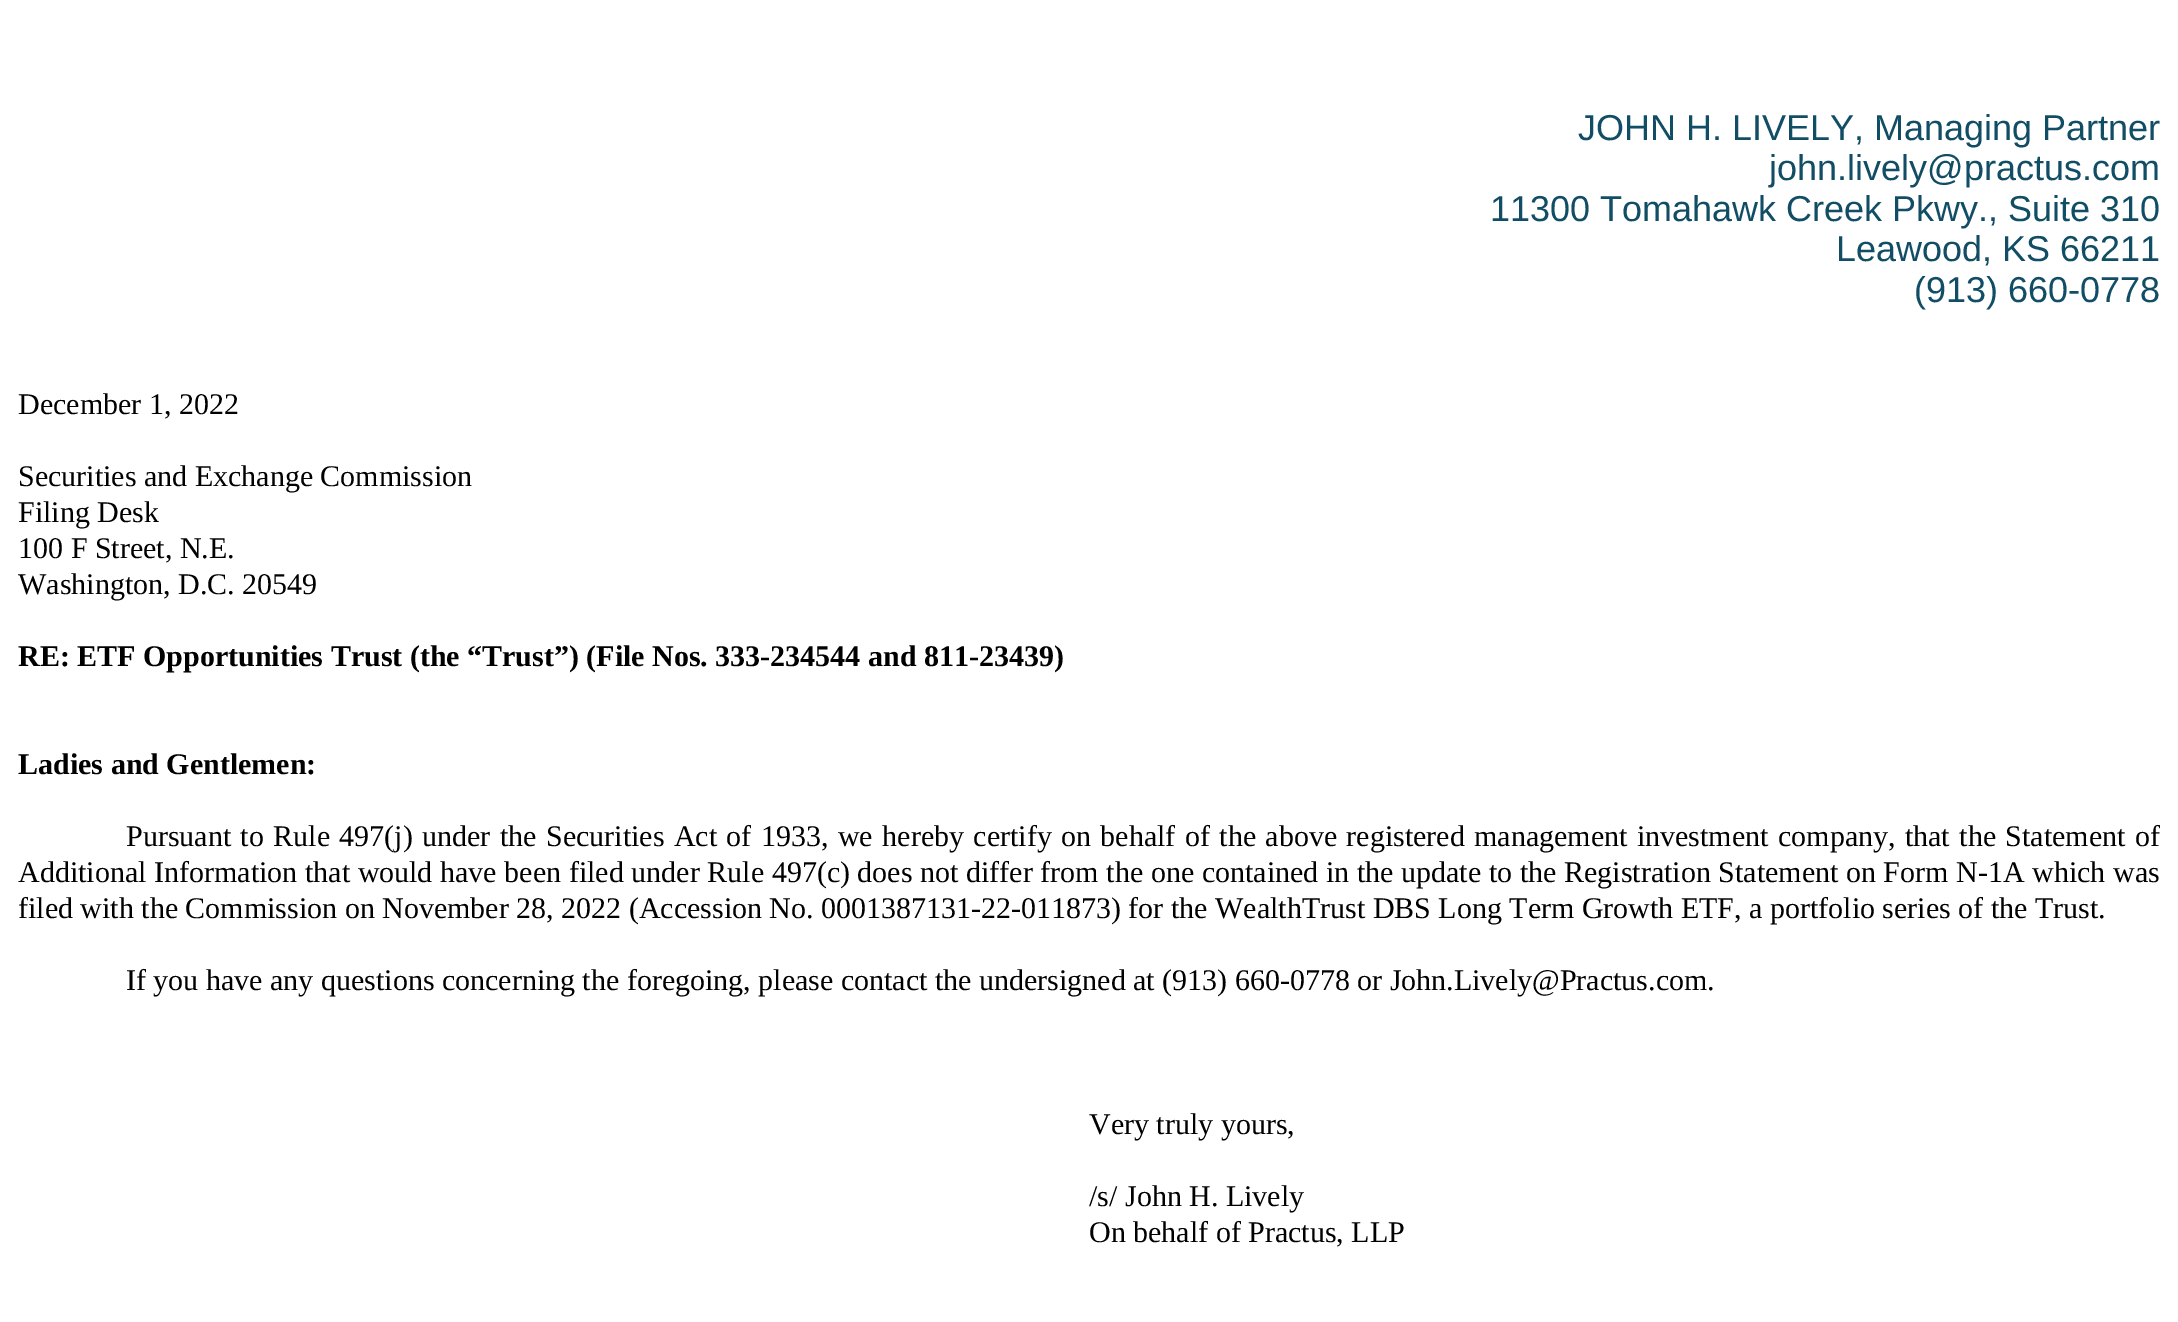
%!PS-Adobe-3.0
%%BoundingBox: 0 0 2178 1322
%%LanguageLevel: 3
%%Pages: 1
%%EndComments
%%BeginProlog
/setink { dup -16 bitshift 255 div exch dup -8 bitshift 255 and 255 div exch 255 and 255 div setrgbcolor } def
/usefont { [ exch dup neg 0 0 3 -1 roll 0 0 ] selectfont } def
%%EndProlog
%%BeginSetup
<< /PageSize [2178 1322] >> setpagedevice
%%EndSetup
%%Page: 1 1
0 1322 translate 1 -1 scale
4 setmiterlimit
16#FFFFFF setink
0 0 2178 1322 rectfill
/LiberationSans-Regular 36 usefont
16#114E65 setink
[
    [(JOHN H. LIVELY, Managing Partner) 1578 140]
    [(john.lively@practus.com) 1769 180]
    [(11300 Tomahawk Creek Pkwy., Suite 310) 1490 221]
    [(Leawood, KS 66211) 1836 261]
    [(\(913\) 660-0778) 1914 302]
] { aload pop moveto show } forall
/LiberationSerif-Regular 30 usefont
16#000000 setink
[
    [(December 1, 2022) 18 414]
    [(Securities and Exchange Commission) 18 486]
    [(Filing Desk) 18 522]
    [(100 F Street, N.E.) 18 558]
    [(Washington, D.C. 20549) 18 594]
] { aload pop moveto show } forall
/LiberationSerif-Bold 30 usefont
18 666 moveto (RE: ETF Opportunities Trust \(the “Trust”\) \(File Nos. 333-234544 and 811-23439\)) show
18 774 moveto (Ladies and Gentlemen:) show
/LiberationSerif-Regular 30 usefont
126 846 moveto 1.95 0 32 (Pursuant to Rule 497\(j\) under the Securities Act of 1933, we hereby certify on behalf of the above registered management investment company, that the Statement of) widthshow
18 882 moveto 0.15 0 32 (Additional Information that would have been filed under Rule 497\(c\) does not differ from the one contained in the update to the Registration Statement on Form N-1A which was) widthshow
[
    [(filed with the Commission on November 28, 2022 \(Accession No. 0001387131-22-011873) 18 918]
    [(\) for the WealthTrust DBS Long Term Growth ETF, a portfolio series of the Trust.) 1111 918]
    [(If you have any questions concerning the foregoing, please contact the undersigned at \(913\) 660-0778 or John.Lively@Practus.com.) 126 990]
    [(Very truly yours,) 1089 1134]
    [(/s/ John H. Lively) 1089 1206]
    [(On behalf of Practus, LLP) 1089 1242]
] { aload pop moveto show } forall
showpage
%%EOF
